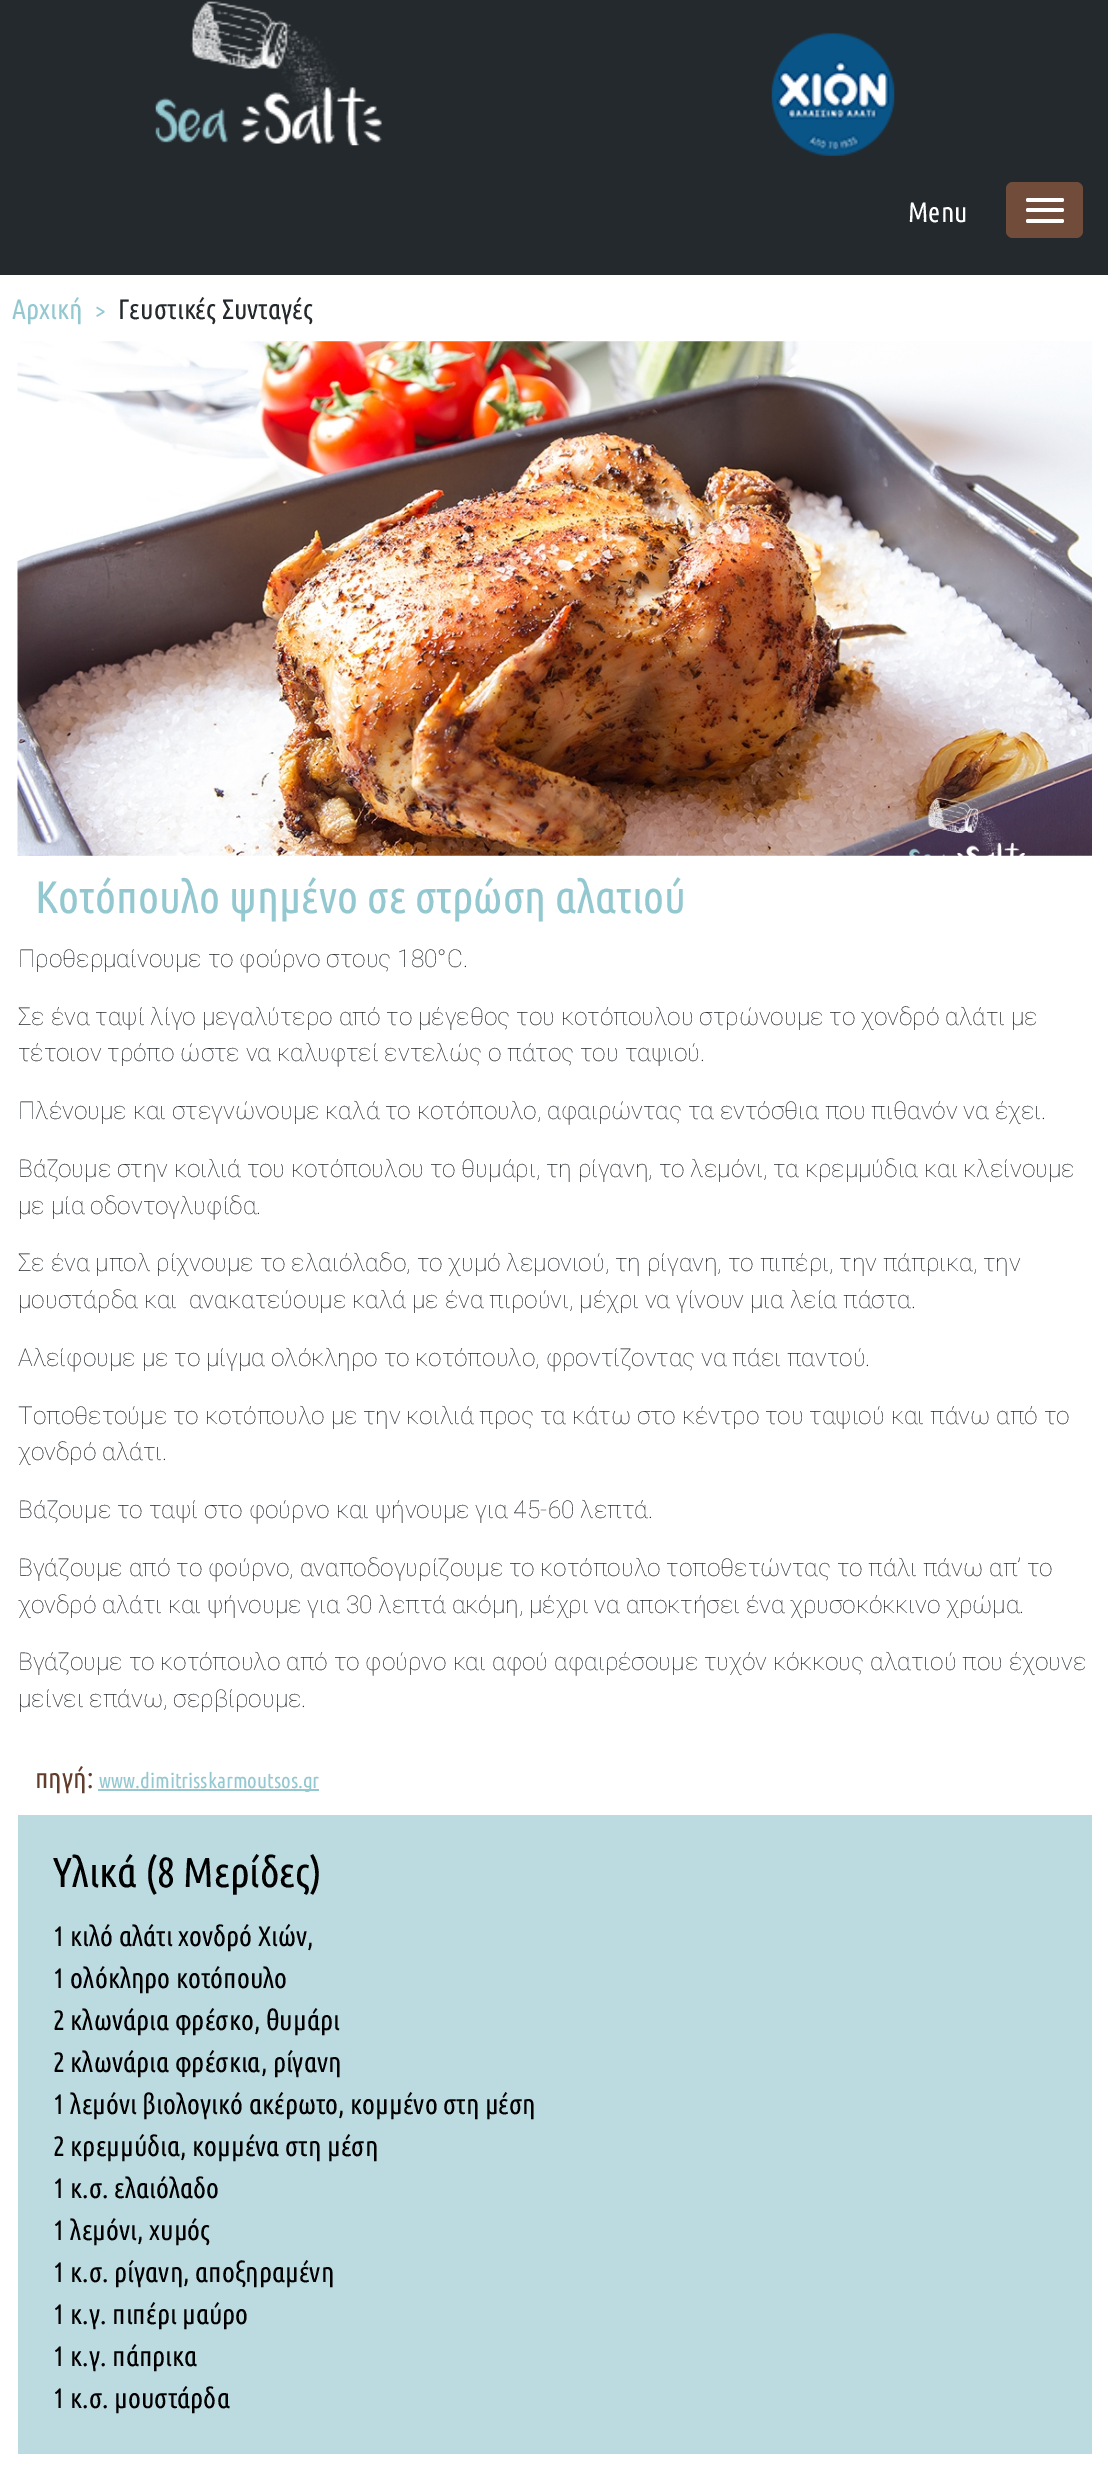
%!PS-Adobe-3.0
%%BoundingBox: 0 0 1108 2480
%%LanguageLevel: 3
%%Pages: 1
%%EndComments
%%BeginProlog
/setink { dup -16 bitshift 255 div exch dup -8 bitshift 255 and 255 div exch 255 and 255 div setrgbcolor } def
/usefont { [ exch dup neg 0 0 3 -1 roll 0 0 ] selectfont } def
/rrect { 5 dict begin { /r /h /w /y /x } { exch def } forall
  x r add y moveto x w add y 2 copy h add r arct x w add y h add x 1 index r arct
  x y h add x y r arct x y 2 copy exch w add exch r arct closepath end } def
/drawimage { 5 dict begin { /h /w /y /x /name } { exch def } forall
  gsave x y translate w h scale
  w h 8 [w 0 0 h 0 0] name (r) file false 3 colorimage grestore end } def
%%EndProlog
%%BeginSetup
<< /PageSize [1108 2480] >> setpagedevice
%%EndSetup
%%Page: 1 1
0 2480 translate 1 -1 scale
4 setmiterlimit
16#24292D setink
0 0 1108 2480 rectfill
(img1.raw) 155 1 227 145 drawimage
(img2.raw) 771 32 124 124 drawimage
/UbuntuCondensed-Regular 28 usefont
16#FFFFFF setink
908 222 moveto (Menu) show
16#724C3B setink
1006 182 77 56 7 rrect fill
16#FFFFFF setink
1026 198 38 4 2 rrect fill
1026 208 38 4 2 rrect fill
1026 219 38 4 2 rrect fill
0 275 1108 2205 rectfill
16#94C8D1 setink
12 319 moveto (Αρχική) show
/UbuntuCondensed-Regular 24.5 usefont
95 319 moveto (>) show
/UbuntuCondensed-Regular 28 usefont
16#24292D setink
118 319 moveto (Γευστικές Συνταγές) show
(img3.raw) 17 341 1075 515 drawimage
/UbuntuCondensed-Regular 45.5 usefont
16#94C8D1 setink
35 913 moveto (Κοτόπουλο ψημένο σε στρώση αλατιού) show
/Roboto-Thin 24.5 usefont
16#24292D setink
[
    [(Προθερμαίνουμε το φούρνο στους 180°C.) 18 967]
    [(Σε ένα ταψί λίγο μεγαλύτερο από το μέγεθος του κοτόπουλου στρώνουμε το χονδρό αλάτι με) 18 1025]
    [(τέτοιον τρόπο ώστε να καλυφτεί εντελώς ο πάτος του ταψιού.) 18 1061]
    [(Πλένουμε και στεγνώνουμε καλά το κοτόπουλο, αφαιρώντας τα εντόσθια που πιθανόν να έχει.) 18 1119]
    [(Βάζουμε στην κοιλιά του κοτόπουλου το θυμάρι, τη ρίγανη, το λεμόνι, τα κρεμμύδια και κλείνουμε) 18 1177]
    [(με μία οδοντογλυφίδα.) 18 1214]
    [(Σε ένα μπολ ρίχνουμε το ελαιόλαδο, το χυμό λεμονιού, τη ρίγανη, το πιπέρι, την πάπρικα, την) 18 1271]
    [(μουστάρδα και  ανακατεύουμε καλά με ένα πιρούνι, μέχρι να γίνουν μια λεία πάστα.) 18 1308]
    [(Αλείφουμε με το μίγμα ολόκληρο το κοτόπουλο, φροντίζοντας να πάει παντού.) 18 1366]
    [(Τοποθετούμε το κοτόπουλο με την κοιλιά προς τα κάτω στο κέντρο του ταψιού και πάνω από το) 18 1424]
    [(χονδρό αλάτι.) 18 1460]
    [(Βάζουμε το ταψί στο φούρνο και ψήνουμε για 45-60 λεπτά.) 18 1518]
    [(Βγάζουμε από το φούρνο, αναποδογυρίζουμε το κοτόπουλο τοποθετώντας το πάλι πάνω απ’ το) 18 1576]
    [(χονδρό αλάτι και ψήνουμε για 30 λεπτά ακόμη, μέχρι να αποκτήσει ένα χρυσοκόκκινο χρώμα.) 18 1613]
    [(Βγάζουμε το κοτόπουλο από το φούρνο και αφού αφαιρέσουμε τυχόν κόκκους αλατιού που έχουνε) 18 1670]
    [(μείνει επάνω, σερβίρουμε.) 18 1707]
] { aload pop moveto show } forall
/UbuntuCondensed-Regular 28 usefont
16#633D2C setink
35 1788 moveto (πηγή:) show
16#94C8D1 setink
98 1789 221 2 rectfill
/UbuntuCondensed-Regular 21 usefont
99 1788 moveto (www.dimitrisskarmoutsos.gr) show
16#BCDBE1 setink
18 1815 1074 639 rectfill
/UbuntuCondensed-Regular 42 usefont
16#000000 setink
53 1887 moveto (Υλικά \(8 Μερίδες\)) show
/UbuntuCondensed-Regular 28 usefont
[
    [(1 κιλό αλάτι χονδρό Χιών,) 53 1946]
    [(1 ολόκληρο κοτόπουλο) 53 1988]
    [(2 κλωνάρια φρέσκο, θυμάρι) 53 2030]
    [(2 κλωνάρια φρέσκια, ρίγανη) 53 2072]
    [(1 λεμόνι βιολογικό ακέρωτο, κομμένο στη μέση) 53 2114]
    [(2 κρεμμύδια, κομμένα στη μέση) 53 2156]
    [(1 κ.σ. ελαιόλαδο) 53 2198]
    [(1 λεμόνι, χυμός) 53 2240]
    [(1 κ.σ. ρίγανη, αποξηραμένη) 53 2282]
    [(1 κ.γ. πιπέρι μαύρο) 53 2324]
    [(1 κ.γ. πάπρικα) 53 2366]
    [(1 κ.σ. μουστάρδα) 53 2408]
] { aload pop moveto show } forall
showpage
%%EOF
